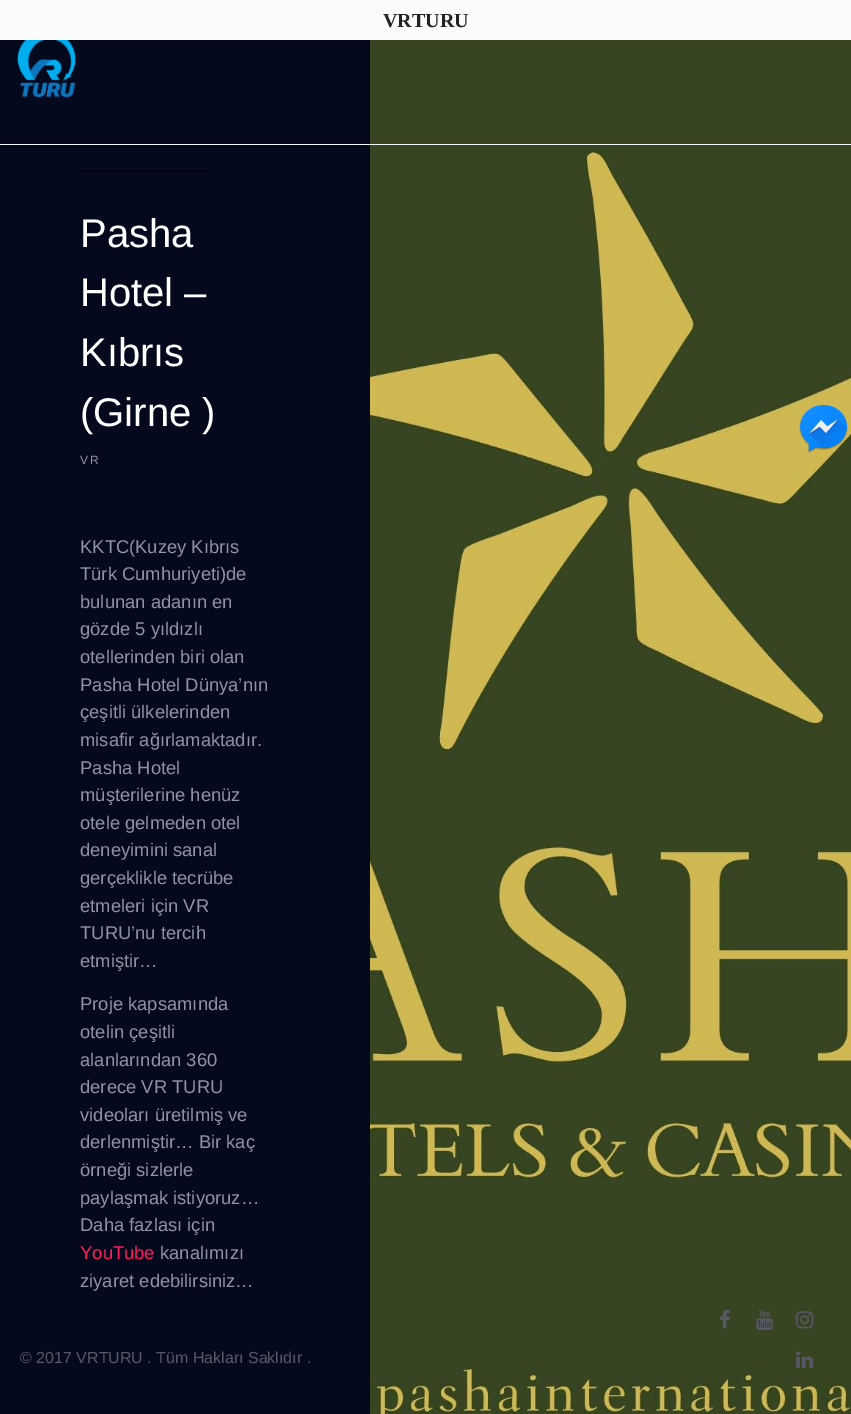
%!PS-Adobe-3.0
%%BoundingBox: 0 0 851 1414
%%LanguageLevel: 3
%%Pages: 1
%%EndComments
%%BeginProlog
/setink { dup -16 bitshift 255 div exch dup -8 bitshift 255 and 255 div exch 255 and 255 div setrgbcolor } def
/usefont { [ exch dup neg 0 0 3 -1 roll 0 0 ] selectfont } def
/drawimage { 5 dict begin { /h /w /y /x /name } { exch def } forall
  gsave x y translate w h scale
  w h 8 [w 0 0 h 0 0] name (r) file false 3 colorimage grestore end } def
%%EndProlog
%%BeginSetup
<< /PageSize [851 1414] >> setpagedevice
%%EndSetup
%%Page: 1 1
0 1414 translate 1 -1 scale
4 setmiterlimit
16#05091D setink
0 0 851 1414 rectfill
16#FBFBFB setink
0 0 851 40 rectfill
/LiberationSerif-Bold 20 usefont
16#222222 setink
383 27 moveto (VRTURU) show
(img2.raw) 370 40 481 1374 drawimage
16#F9F9F9 setink
0 144 851 1 rectfill
(img1.raw) 17 40 59 58 drawimage
16#040717 setink
80 170 130 2 rectfill
/LiberationSans-Regular 40 usefont
16#FFFFFF setink
[
    [(Pasha) 80 247]
    [(Hotel –) 80 306]
    [(Kıbrıs) 80 366]
    [(\(Girne \)) 80 426]
] { aload pop moveto show } forall
/LiberationSans-Regular 12 usefont
16#9192A4 setink
80 464 moveto 2 0 (VR) ashow
/LiberationSans-Regular 18.4 usefont
[
    [(KKTC\(Kuzey Kıbrıs) 80 553]
    [(Türk Cumhuriyeti\)de) 80 580]
    [(bulunan adanın en) 80 608]
    [(gözde 5 yıldızlı) 80 635]
    [(otellerinden biri olan) 80 663]
    [(Pasha Hotel Dünya’nın) 80 691]
    [(çeşitli ülkelerinden) 80 718]
    [(misafir ağırlamaktadır.) 80 746]
    [(Pasha Hotel) 80 774]
    [(müşterilerine henüz) 80 801]
    [(otele gelmeden otel) 80 829]
    [(deneyimini sanal) 80 856]
    [(gerçeklikle tecrübe) 80 884]
    [(etmeleri için VR) 80 912]
    [(TURU’nu tercih) 80 939]
    [(etmiştir…) 80 967]
    [(Proje kapsamında) 80 1010]
    [(otelin çeşitli) 80 1038]
    [(alanlarından 360) 80 1066]
    [(derece VR TURU) 80 1093]
    [(videoları üretilmiş ve) 80 1121]
    [(derlenmiştir… Bir kaç) 80 1148]
    [(örneği sizlerle) 80 1176]
    [(paylaşmak istiyoruz…) 80 1204]
    [(Daha fazlası için) 80 1231]
] { aload pop moveto show } forall
16#FF1D5D setink
80 1259 moveto (YouTube) show
16#9192A4 setink
160 1259 moveto (kanalımızı) show
80 1287 moveto (ziyaret edebilirsiniz…) show
(img3.raw) 799 404 49 49 drawimage
/LiberationSans-Regular 16 usefont
16#565967 setink
20 1363 moveto (© 2017 VRTURU . Tüm Hakları Saklıdır .) show
(img4.raw) 720 1309 10 20 drawimage
(img5.raw) 756 1309 17 21 drawimage
(img6.raw) 796 1311 18 18 drawimage
(img7.raw) 796 1351 18 17 drawimage
showpage
%%EOF
